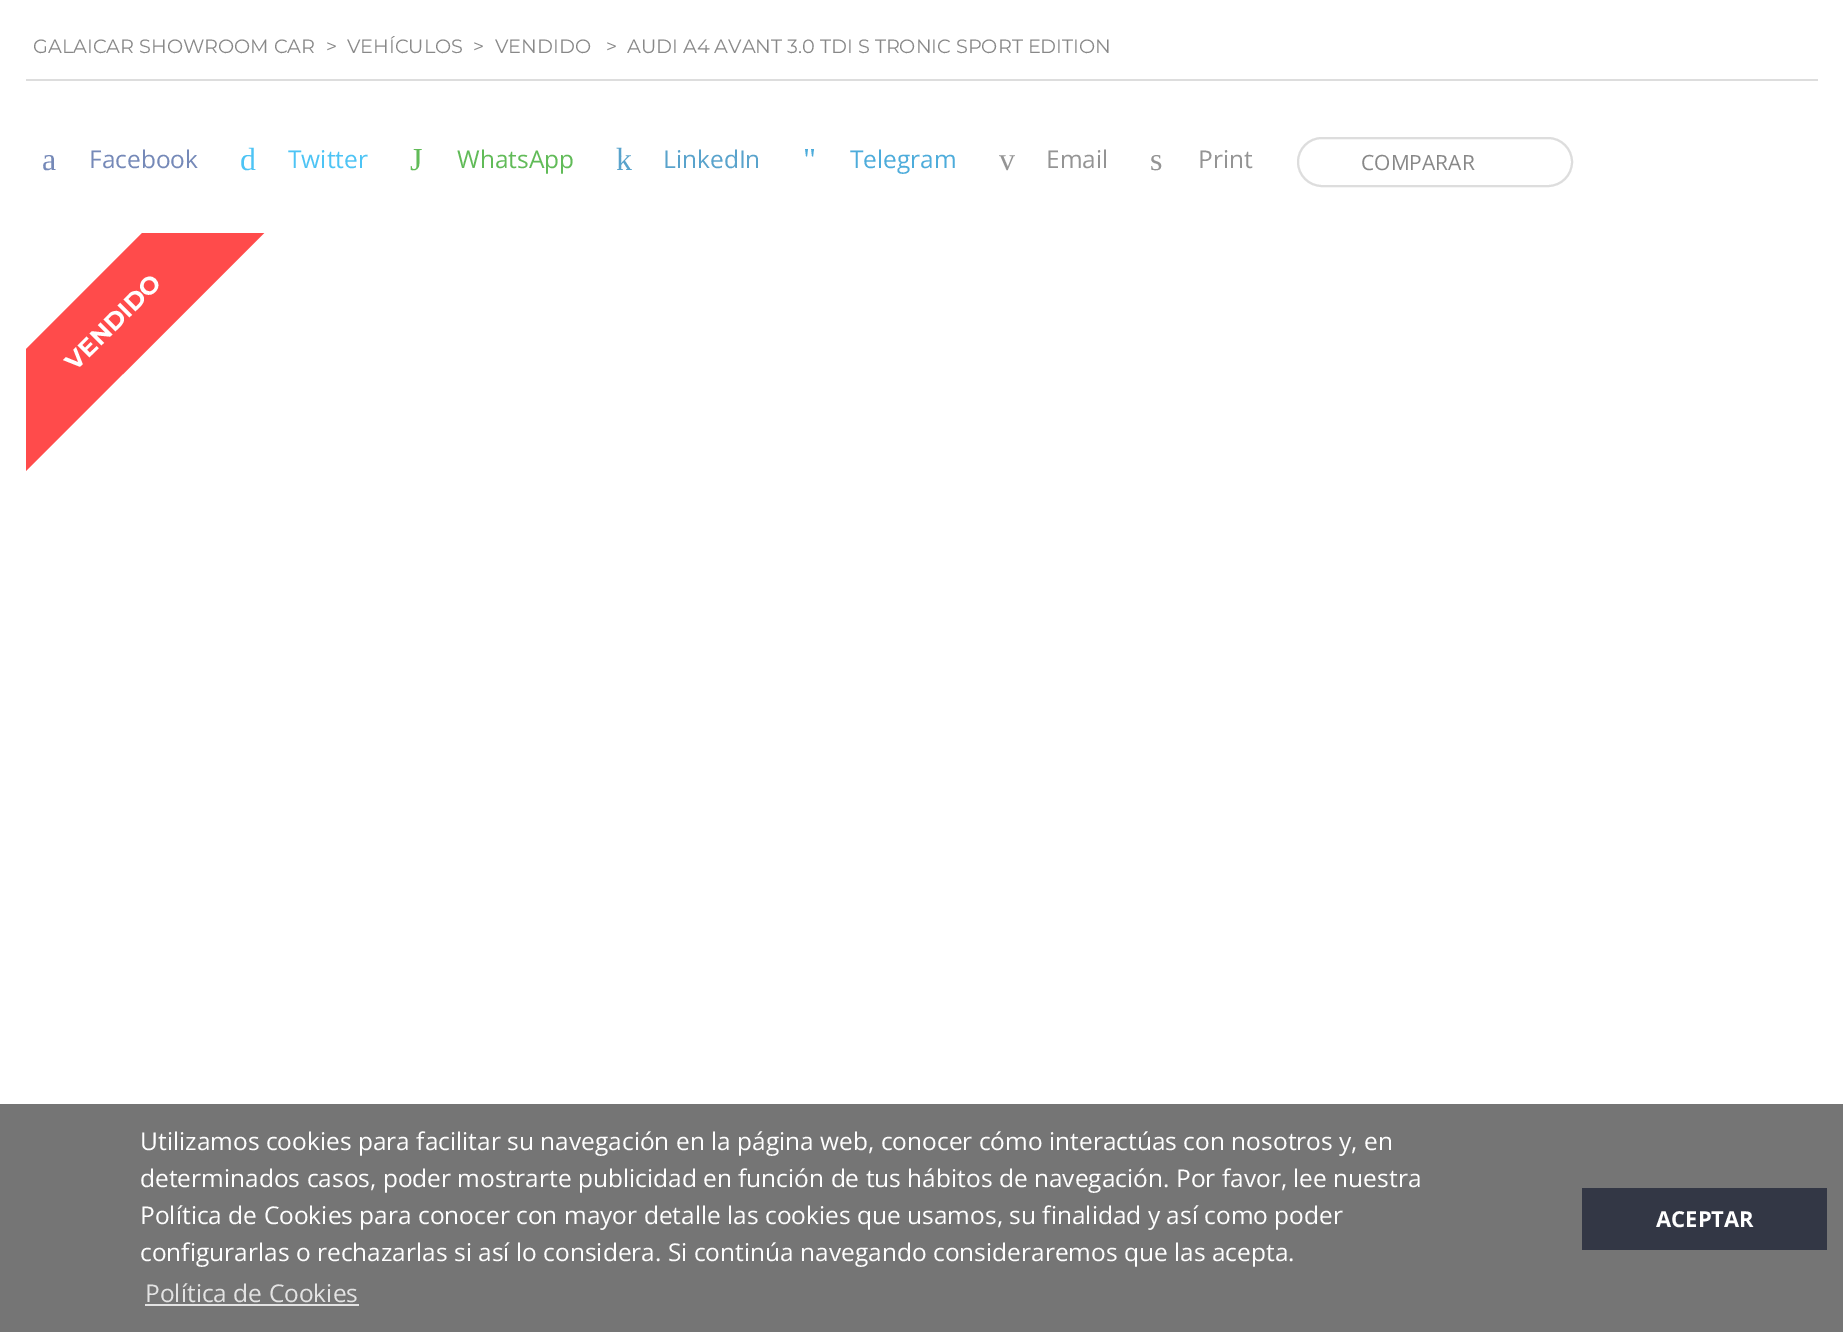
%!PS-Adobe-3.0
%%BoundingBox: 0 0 1843 1332
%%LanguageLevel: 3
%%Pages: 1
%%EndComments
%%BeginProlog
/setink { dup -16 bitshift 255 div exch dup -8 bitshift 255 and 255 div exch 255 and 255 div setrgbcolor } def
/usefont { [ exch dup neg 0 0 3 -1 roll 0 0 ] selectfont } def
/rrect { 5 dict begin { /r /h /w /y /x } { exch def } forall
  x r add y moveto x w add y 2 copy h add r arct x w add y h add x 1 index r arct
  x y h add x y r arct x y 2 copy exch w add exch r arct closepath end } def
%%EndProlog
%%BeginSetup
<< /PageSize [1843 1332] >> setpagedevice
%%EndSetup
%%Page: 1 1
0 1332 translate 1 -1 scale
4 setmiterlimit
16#FFFFFF setink
0 0 1843 1332 rectfill
16#DDDDDD setink
26 79 1792 2 rectfill
/Montserrat-Regular 19.25 usefont
16#888888 setink
[
    [(GALAICAR SHOWROOM CAR) 33 53]
    [(>) 326 53]
    [(VEHÍCULOS) 347 53]
    [(>) 473 53]
    [(VENDIDO) 495 53]
    [(>) 606 53]
    [(AUDI A4 AVANT 3.0 TDI S TRONIC SPORT EDITION) 627 53]
] { aload pop moveto show } forall
/LiberationSerif-Regular 32 usefont
16#7589B8 setink
42 170 moveto (a) show
/OpenSans-Regular 24.5 usefont
89 168 moveto (Facebook) show
/LiberationSerif-Regular 32 usefont
16#4DC4F5 setink
240 170 moveto (d) show
/OpenSans-Regular 24.5 usefont
288 168 moveto (Twitter) show
/LiberationSerif-Regular 32 usefont
16#61BB58 setink
410 170 moveto (J) show
/OpenSans-Regular 24.5 usefont
457 168 moveto (WhatsApp) show
/LiberationSerif-Regular 32 usefont
16#59A3CC setink
616 170 moveto (k) show
/OpenSans-Regular 24.5 usefont
663 168 moveto (LinkedIn) show
/LiberationSerif-Regular 32 usefont
16#4DACDB setink
803 170 moveto (") show
/OpenSans-Regular 24.5 usefont
850 168 moveto (Telegram) show
/LiberationSerif-Regular 32 usefont
16#949494 setink
999 170 moveto (v) show
/OpenSans-Regular 24.5 usefont
1046 168 moveto (Email) show
/LiberationSerif-Regular 32 usefont
1150 170 moveto (s) show
/OpenSans-Regular 24.5 usefont
1198 168 moveto (Print) show
16#DDDDDD setink
2 setlinewidth
1298 138 274 48 24 rrect stroke
/OpenSans-Regular 21 usefont
16#888888 setink
1361 170 moveto (COMPARAR) show
gsave
26 233 1745 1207 rectclip
16#FF4B4B setink
-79 454 moveto 244 131 lineto 305 192 lineto -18 515 lineto closepath fill
grestore
/Montserrat-Bold 24.5 usefont
16#FFFFFF setink
gsave 75 372 translate -45 rotate 0 0 moveto (VENDIDO) show grestore
16#757575 setink
0 1104 1843 228 rectfill
/OpenSans-Regular 24.5 usefont
16#FFFFFF setink
[
    [(Utilizamos cookies para facilitar su navegación en la página web, conocer cómo interactúas con nosotros y, en) 140 1150]
    [(determinados casos, poder mostrarte publicidad en función de tus hábitos de navegación. Por favor, lee nuestra) 140 1187]
    [(Política de Cookies para conocer con mayor detalle las cookies que usamos, su finalidad y así como poder) 140 1224]
    [(configurarlas o rechazarlas si así lo considera. Si continúa navegando consideraremos que las acepta.) 140 1261]
] { aload pop moveto show } forall
16#E3E3E3 setink
145 1302 moveto (Política de Cookies) show
145 1304 214 2 rectfill
16#333745 setink
1582 1188 245 62 rectfill
/OpenSans-Bold 22 usefont
16#FFFFFF setink
1656 1227 moveto (ACEPTAR) show
showpage
%%EOF
